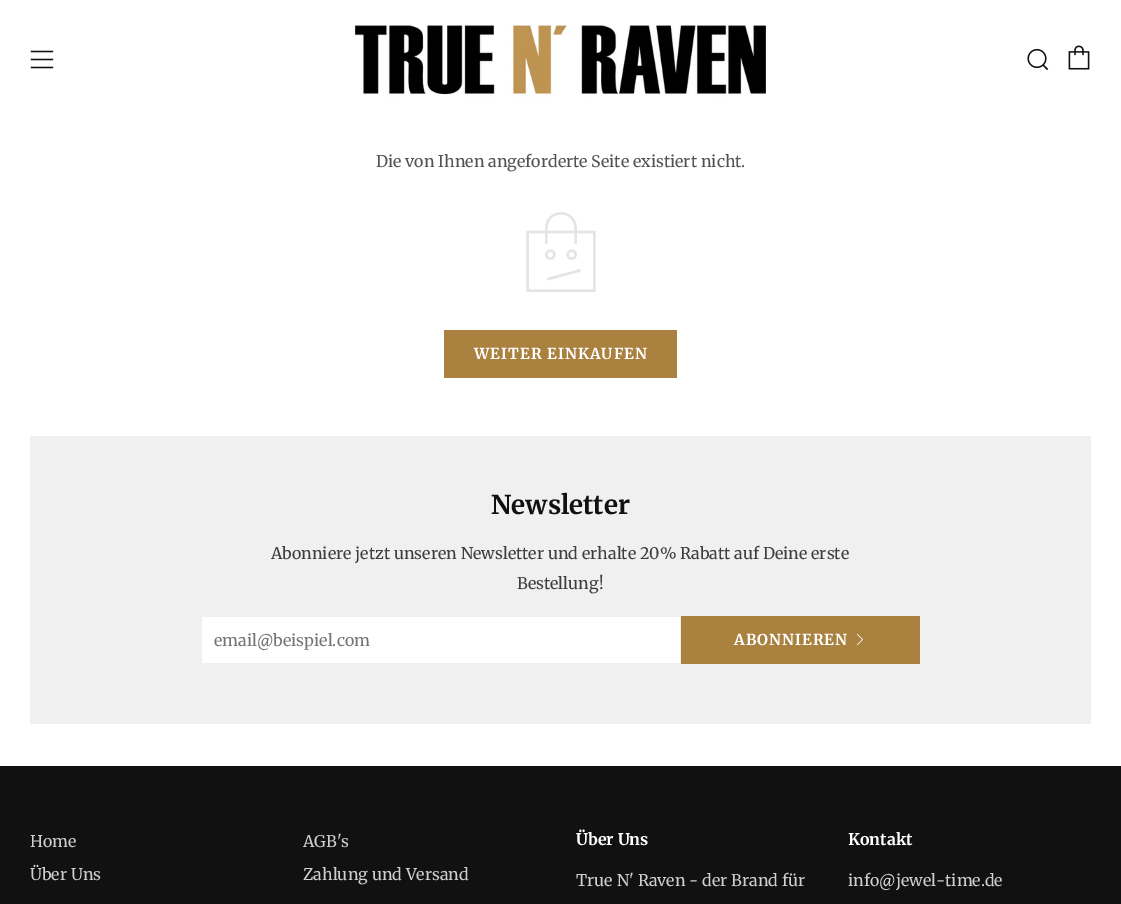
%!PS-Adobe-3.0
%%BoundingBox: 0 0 1121 904
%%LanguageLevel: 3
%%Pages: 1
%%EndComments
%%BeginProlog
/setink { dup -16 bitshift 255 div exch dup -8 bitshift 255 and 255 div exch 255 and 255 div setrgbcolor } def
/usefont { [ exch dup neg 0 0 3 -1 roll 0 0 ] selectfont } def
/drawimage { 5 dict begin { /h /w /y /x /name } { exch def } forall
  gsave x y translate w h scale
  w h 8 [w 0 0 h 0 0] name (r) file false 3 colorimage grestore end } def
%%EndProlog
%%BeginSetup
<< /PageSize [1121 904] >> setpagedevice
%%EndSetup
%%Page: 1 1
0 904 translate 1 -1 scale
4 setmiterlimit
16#FFFFFF setink
0 0 1121 904 rectfill
(img1.raw) 30 50 24 19 drawimage
(img2.raw) 354 24 412 74 drawimage
(img3.raw) 1027 48 22 23 drawimage
(img4.raw) 1068 45 22 25 drawimage
/Merriweather-Regular 16 usefont
16#535353 setink
376 167 moveto (Die von Ihnen angeforderte Seite existiert nicht.) show
(img5.raw) 526 212 70 80 drawimage
16#AB8140 setink
444 330 233 48 rectfill
/Merriweather-Bold 15 usefont
16#FFFFFF setink
474 359 moveto 1 0 (WEITER EINKAUFEN) ashow
16#F0F0F0 setink
30 436 1061 288 rectfill
/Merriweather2-Bold 26 usefont
16#111111 setink
491 514 moveto (Newsletter) show
/Merriweather-Regular 16 usefont
16#3E3E3E setink
271 559 moveto (Abonniere jetzt unseren Newsletter und erhalte 20% Rabatt auf Deine erste) show
517 589 moveto (Bestellung!) show
16#FFFFFF setink
202 617 478 46 rectfill
16#757575 setink
214 646 moveto (email@beispiel.com) show
16#AB8140 setink
681 616 239 48 rectfill
/Merriweather-Bold 15 usefont
16#FFFFFF setink
734 645 moveto 1 0 (ABONNIEREN) ashow
(img6.raw) 856 633 8 13 drawimage
16#111111 setink
0 766 1121 138 rectfill
/Merriweather-Regular 16 usefont
16#CFCFCF setink
[
    [(Home) 30 847]
    [(Über Uns) 30 880]
    [(AGB's) 303 847]
    [(Zahlung und Versand) 303 880]
] { aload pop moveto show } forall
/Merriweather-Bold 16 usefont
16#FFFFFF setink
576 845 moveto (Über Uns) show
/Merriweather-Regular 16 usefont
16#CFCFCF setink
576 886 moveto (True N' Raven - der Brand für) show
/Merriweather-Bold 16 usefont
16#FFFFFF setink
848 845 moveto (Kontakt) show
/Merriweather-Regular 16 usefont
16#CFCFCF setink
848 886 moveto (info@jewel-time.de) show
showpage
%%EOF
